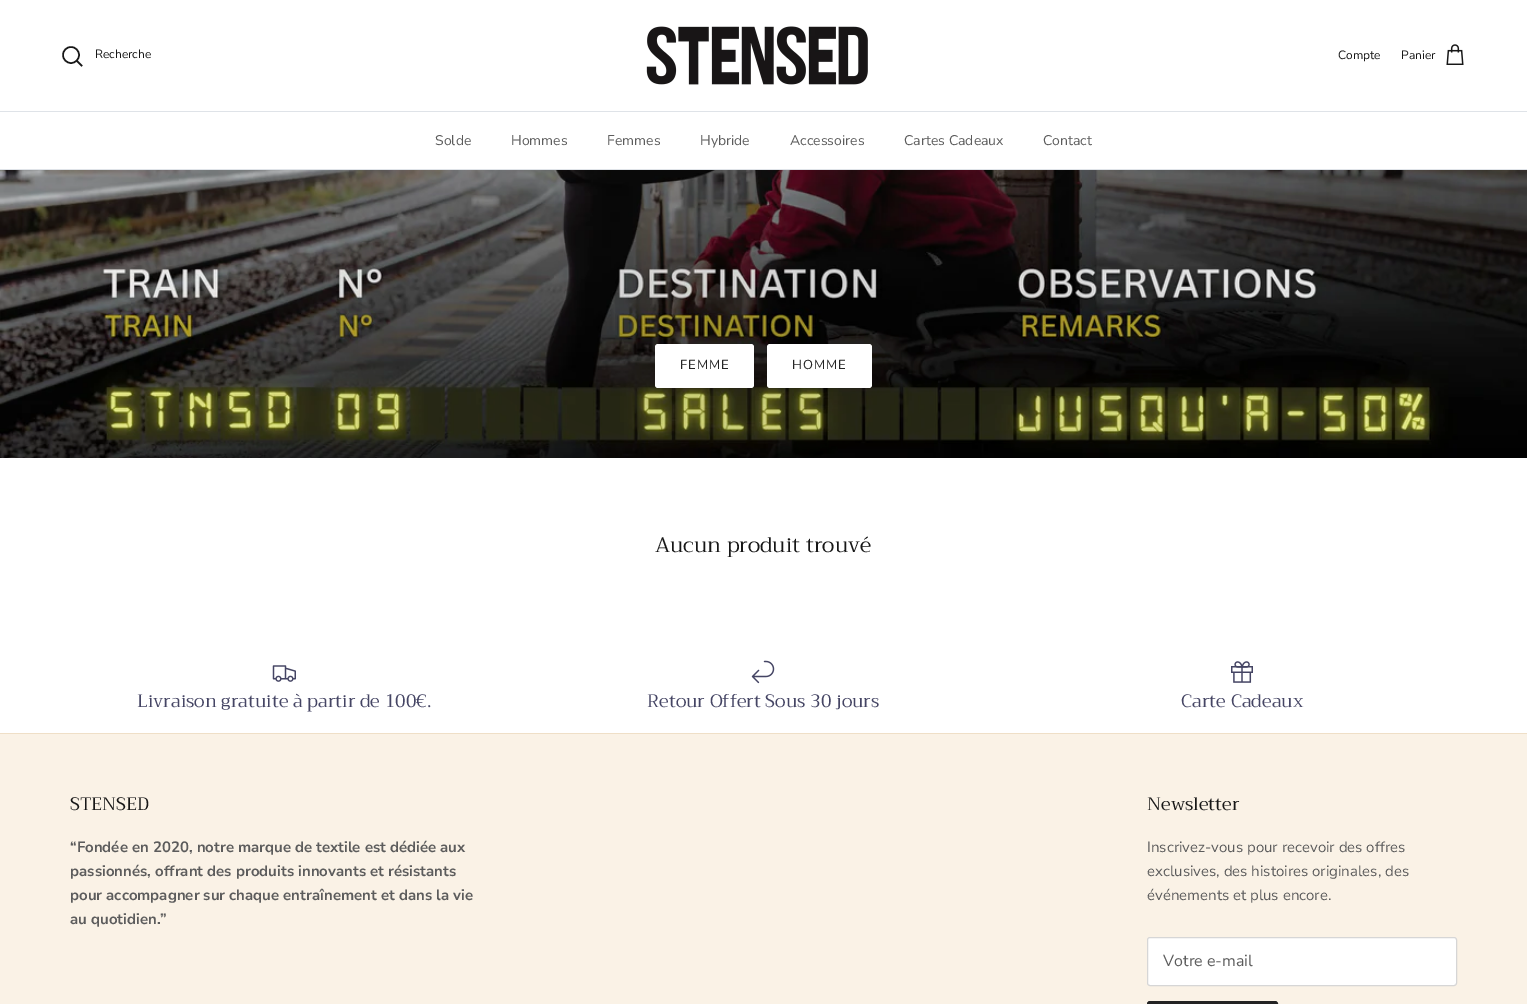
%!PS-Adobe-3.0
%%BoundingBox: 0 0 1527 1004
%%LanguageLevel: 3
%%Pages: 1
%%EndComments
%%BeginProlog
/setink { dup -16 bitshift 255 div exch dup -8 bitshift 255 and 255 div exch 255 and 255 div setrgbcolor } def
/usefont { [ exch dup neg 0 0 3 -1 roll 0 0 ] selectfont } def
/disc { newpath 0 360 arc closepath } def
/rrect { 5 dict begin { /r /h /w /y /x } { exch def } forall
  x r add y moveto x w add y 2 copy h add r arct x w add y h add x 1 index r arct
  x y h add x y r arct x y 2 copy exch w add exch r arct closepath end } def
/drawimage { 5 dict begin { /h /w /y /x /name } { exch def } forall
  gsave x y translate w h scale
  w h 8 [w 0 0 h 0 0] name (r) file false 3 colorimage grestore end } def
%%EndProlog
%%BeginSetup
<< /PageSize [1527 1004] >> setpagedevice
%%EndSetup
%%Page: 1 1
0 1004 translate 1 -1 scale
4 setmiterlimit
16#FFFFFF setink
0 0 1527 1004 rectfill
16#DFE3E8 setink
0 111 1527 1 rectfill
16#171717 setink
1.5 setlinewidth
71 55 8 disc stroke
/NunitoSans-Regular 12 usefont
95 58 moveto (Recherche) show
2 setlinecap
77 61 moveto 81.5 65.5 lineto stroke
(img1.raw) 646 26 222 59 drawimage
1338 59 moveto (Compte) show
1401 59 moveto (Panier) show
(img2.raw) 1446 44 18 21 drawimage
16#DFE3E8 setink
0 169 1527 1 rectfill
/NunitoSans-Regular 14 usefont
16#5C5C5C setink
[
    [(Solde) 435 145]
    [(Hommes) 511 145]
    [(Femmes) 607 145]
    [(Hybride) 700 145]
    [(Accessoires) 790 145]
    [(Cartes Cadeaux) 904 145]
    [(Contact) 1043 145]
] { aload pop moveto show } forall
(img3.raw) 0 170 1527 288 drawimage
16#FFFFFF setink
655 344 99 44 3 rrect fill
/NunitoSans-Regular 13 usefont
16#232323 setink
680 369 moveto 1 0 (FEMME) ashow
16#FFFFFF setink
767 344 105 44 3 rrect fill
16#232323 setink
792 369 moveto 1 0 (HOMME) ashow
/Trirong-Regular 21 usefont
16#171717 setink
655 552 moveto (Aucun produit trouvé) show
(img4.raw) 272 665 24 17 drawimage
/Trirong-Regular 18 usefont
16#454564 setink
137 707 moveto (Livraison gratuite à partir de 100€.) show
(img5.raw) 751 660 24 24 drawimage
647 707 moveto (Retour Offert Sous 30 jours) show
(img6.raw) 1231 661 22 22 drawimage
1181 707 moveto (Carte Cadeaux) show
16#FAF2E6 setink
0 734 1527 270 rectfill
16#EFDFC7 setink
0 733 1527 1 rectfill
16#171717 setink
70 810 moveto (STENSED) show
/NunitoSans-Bold 15 usefont
16#5C5C5C setink
[
    [(“Fondée en 2020, notre marque de textile est dédiée aux) 70 852]
    [(passionnés, offrant des produits innovants et résistants) 70 876]
    [(pour accompagner sur chaque entraînement et dans la vie) 70 900]
    [(au quotidien.”) 70 924]
] { aload pop moveto show } forall
/Trirong-Regular 18 usefont
16#171717 setink
1147 810 moveto (Newsletter) show
/NunitoSans-Regular 15 usefont
16#5C5C5C setink
[
    [(Inscrivez-vous pour recevoir des offres) 1147 852]
    [(exclusives, des histoires originales, des) 1147 876]
    [(événements et plus encore.) 1147 900]
] { aload pop moveto show } forall
16#FFFFFF setink
1147.5 937.5 309 48 2.5 rrect gsave fill grestore
16#D6D6D6 setink
1 setlinewidth
0 setlinecap
stroke
/NunitoSans-Regular 16 usefont
16#5C5C5C setink
1163 966 moveto (Votre e-mail) show
16#232323 setink
1147.5 1001.5 130 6 2.5 rrect gsave fill grestore
stroke
showpage
%%EOF
